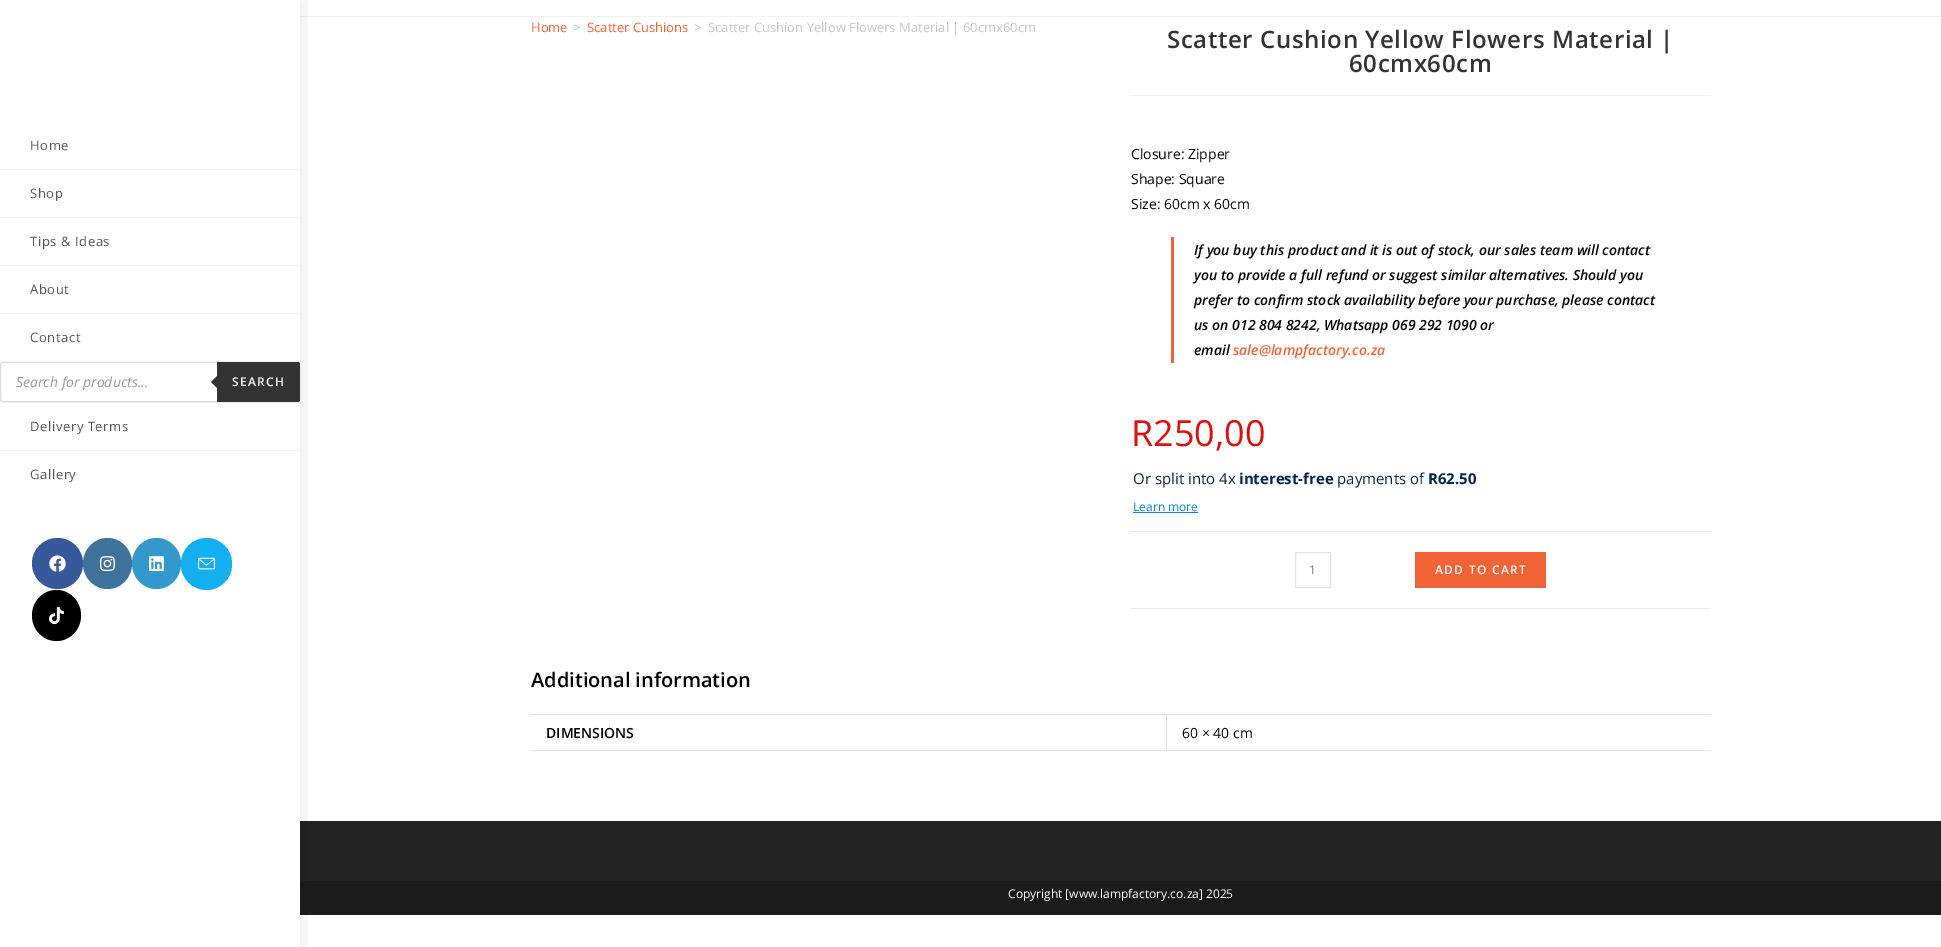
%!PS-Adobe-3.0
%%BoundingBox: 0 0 1941 947
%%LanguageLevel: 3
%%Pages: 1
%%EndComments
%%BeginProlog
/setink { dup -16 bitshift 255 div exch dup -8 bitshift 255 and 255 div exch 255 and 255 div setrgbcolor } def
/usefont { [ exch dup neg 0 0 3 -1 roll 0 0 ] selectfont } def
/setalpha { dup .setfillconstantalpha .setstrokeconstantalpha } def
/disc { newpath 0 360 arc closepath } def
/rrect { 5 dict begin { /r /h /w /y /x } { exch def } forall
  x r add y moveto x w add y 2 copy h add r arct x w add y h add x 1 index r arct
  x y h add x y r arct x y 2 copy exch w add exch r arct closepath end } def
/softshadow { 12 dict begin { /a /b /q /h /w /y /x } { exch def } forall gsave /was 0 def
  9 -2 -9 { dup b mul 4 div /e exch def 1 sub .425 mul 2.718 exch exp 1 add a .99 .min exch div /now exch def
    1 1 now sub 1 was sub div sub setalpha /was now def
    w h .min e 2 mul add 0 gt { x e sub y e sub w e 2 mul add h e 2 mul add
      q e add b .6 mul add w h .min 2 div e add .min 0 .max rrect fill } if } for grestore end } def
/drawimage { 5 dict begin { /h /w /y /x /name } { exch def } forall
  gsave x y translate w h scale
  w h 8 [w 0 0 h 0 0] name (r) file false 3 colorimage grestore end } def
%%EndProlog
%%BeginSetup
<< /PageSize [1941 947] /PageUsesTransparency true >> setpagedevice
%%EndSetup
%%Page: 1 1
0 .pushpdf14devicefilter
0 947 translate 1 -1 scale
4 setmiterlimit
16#FFFFFF setink
0 0 1941 947 rectfill
[
    [300 16 1641 1 16#F1F1F1]
    [300 821 1641 60 16#222222]
    [300 881 1641 34 16#1B1B1B]
] { aload pop setink rectfill } forall
gsave
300 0 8 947 rectclip
16#000000 setink
0 0 300 947 0 10 0.1 softshadow
grestore
16#F2F2F2 setink
0 169 300 1 rectfill
/OpenSans-Regular 13 usefont
16#555555 setink
30 150 moveto 0.6 0 (Home) ashow
16#F2F2F2 setink
0 217 300 1 rectfill
16#555555 setink
30 198 moveto 0.6 0 (Shop) ashow
16#F2F2F2 setink
0 265 300 1 rectfill
16#555555 setink
30 246 moveto 0.6 0 (Tips & Ideas) ashow
16#F2F2F2 setink
0 313 300 1 rectfill
16#555555 setink
30 294 moveto 0.6 0 (About) ashow
16#F2F2F2 setink
0 361 300 1 rectfill
16#555555 setink
30 342 moveto 0.6 0 (Contact) ashow
16#F2F2F2 setink
0 402 300 1 rectfill
16#DDDDDD setink
0.5 362.5 299 39 2.5 rrect stroke
/OpenSans-Italic 14 usefont
16#999999 setink
16 387 moveto (Search for products...) show
16#333333 setink
217 362 moveto 298 362 lineto 299 362 300 363 300 364 curveto 300 400 lineto 300 401 299 402 298 402 curveto 217 402 lineto closepath fill
219 374 moveto 219 390 lineto 211 382 lineto closepath fill
/OpenSans-SemiBold 12 usefont
16#FFFFFF setink
232 386 moveto 1.25 0 (SEARCH) ashow
16#F2F2F2 setink
0 450 300 1 rectfill
/OpenSans-Regular 13 usefont
16#555555 setink
30 431 moveto 0.6 0 (Delivery Terms) ashow
30 479 moveto 0.6 0 (Gallery) ashow
16#37589B setink
57.5 563.5 25.5 disc fill
(img1.raw) 49 555 17 17 drawimage
16#3F729B setink
107.5 538 moveto 121 538 132 549.5 132 563.5 curveto 132 577.5 121 589 107.5 589 curveto 94 589 83 577.5 83 563.5 curveto 83 549.5 94 538 107.5 538 curveto closepath fill
(img2.raw) 100 556 15 16 drawimage
16#3399CC setink
156.5 538 moveto 170 538 181 549.5 181 563.5 curveto 181 577.5 170 589 156.5 589 curveto 143 589 132 577.5 132 563.5 curveto 132 549.5 143 538 156.5 538 curveto closepath fill
(img3.raw) 149 556 15 16 drawimage
16#13AFF0 setink
181 538 51 52 25.5 rrect fill
(img4.raw) 198 557 17 13 drawimage
16#000000 setink
56.5 590 moveto 70 590 81 601.5 81 615.5 curveto 81 629.5 70 641 56.5 641 curveto 43 641 32 629.5 32 615.5 curveto 32 601.5 43 590 56.5 590 curveto closepath fill
(img5.raw) 49 607 15 18 drawimage
16#F06336 setink
531 32 moveto (Home) show
16#C6C6C6 setink
573 32 moveto (>) show
16#F06336 setink
587 32 moveto (Scatter Cushions) show
16#C6C6C6 setink
694 32 moveto (>) show
708 32 moveto (Scatter Cushion Yellow Flowers Material | 60cmx60cm) show
16#F1F1F1 setink
1131 95 580 1 rectfill
/OpenSans-SemiBold 24 usefont
16#333333 setink
1167 48 moveto 0.6 0 (Scatter Cushion Yellow Flowers Material |) ashow
1349 72 moveto 0.6 0 (60cmx60cm) ashow
/OpenSans-Regular 14 usefont
16#010101 setink
[
    [(Closure: Zipper) 1131 159]
    [(Shape: Square) 1131 184]
    [(Size: 60cm x 60cm) 1131 209]
] { aload pop moveto show } forall
16#F06336 setink
1171 237 3 126 rectfill
/OpenSans-SemiBoldItalic 14 usefont
16#010101 setink
[
    [(If you buy this product and it is out of stock, our sales team will contact) 1194 255]
    [(you to provide a full refund or suggest similar alternatives. Should you) 1194 280]
    [(prefer to confirm stock availability before your purchase, please contact) 1194 305]
    [(us on 012 804 8242, Whatsapp 069 292 1090 or) 1194 330]
    [(email) 1194 355]
] { aload pop moveto show } forall
16#F06336 setink
1233 355 moveto (sale@lampfactory.co.za) show
/OpenSans-Regular 36 usefont
16#DD0F0F setink
1131 446 moveto (R250,00) show
/OpenSans-Regular 15 usefont
16#002751 setink
1133 484 moveto (Or split into 4x) show
/OpenSans-Bold 15 usefont
1239 484 moveto (interest-free) show
/OpenSans-Regular 15 usefont
1337 484 moveto (payments of) show
/OpenSans-Bold 15 usefont
1428 484 moveto (R62.50) show
/OpenSans-Regular 12 usefont
16#0086EF setink
1133 511 moveto (Learn more) show
[
    [1133 512 65 1 16#0086EF]
    [1131 531 580 1 16#EAEAEA]
    [1131 608 580 1 16#EAEAEA]
] { aload pop setink rectfill } forall
16#E4E4E4 setink
1295.5 552.5 35 35 rectstroke
16#777777 setink
1309 574 moveto (1) show
16#F06336 setink
1415 552 131 36 rectfill
/OpenSans-SemiBold 12 usefont
16#FFFFFF setink
1435 574 moveto 1.25 0 (ADD TO CART) ashow
/OpenSans-SemiBold 20 usefont
16#010101 setink
531 687 moveto (Additional information) show
[
    [531 714 1180 1 16#E4E4E4]
    [1166 750 545 1 16#E4E4E4]
    [1166 714 1 37 16#E4E4E4]
    [530 750 637 1 16#E4E4E4]
] { aload pop setink rectfill } forall
/OpenSans-SemiBold 14 usefont
16#010101 setink
546 738 moveto (DIMENSIONS) show
/OpenSans-Regular 14 usefont
1182 738 moveto (60 × 40 cm) show
/OpenSans-Regular 12 usefont
16#FFFFFF setink
1008 898 moveto (Copyright [www.lampfactory.co.za] 2025) show
.poppdf14devicefilter showpage
%%EOF
